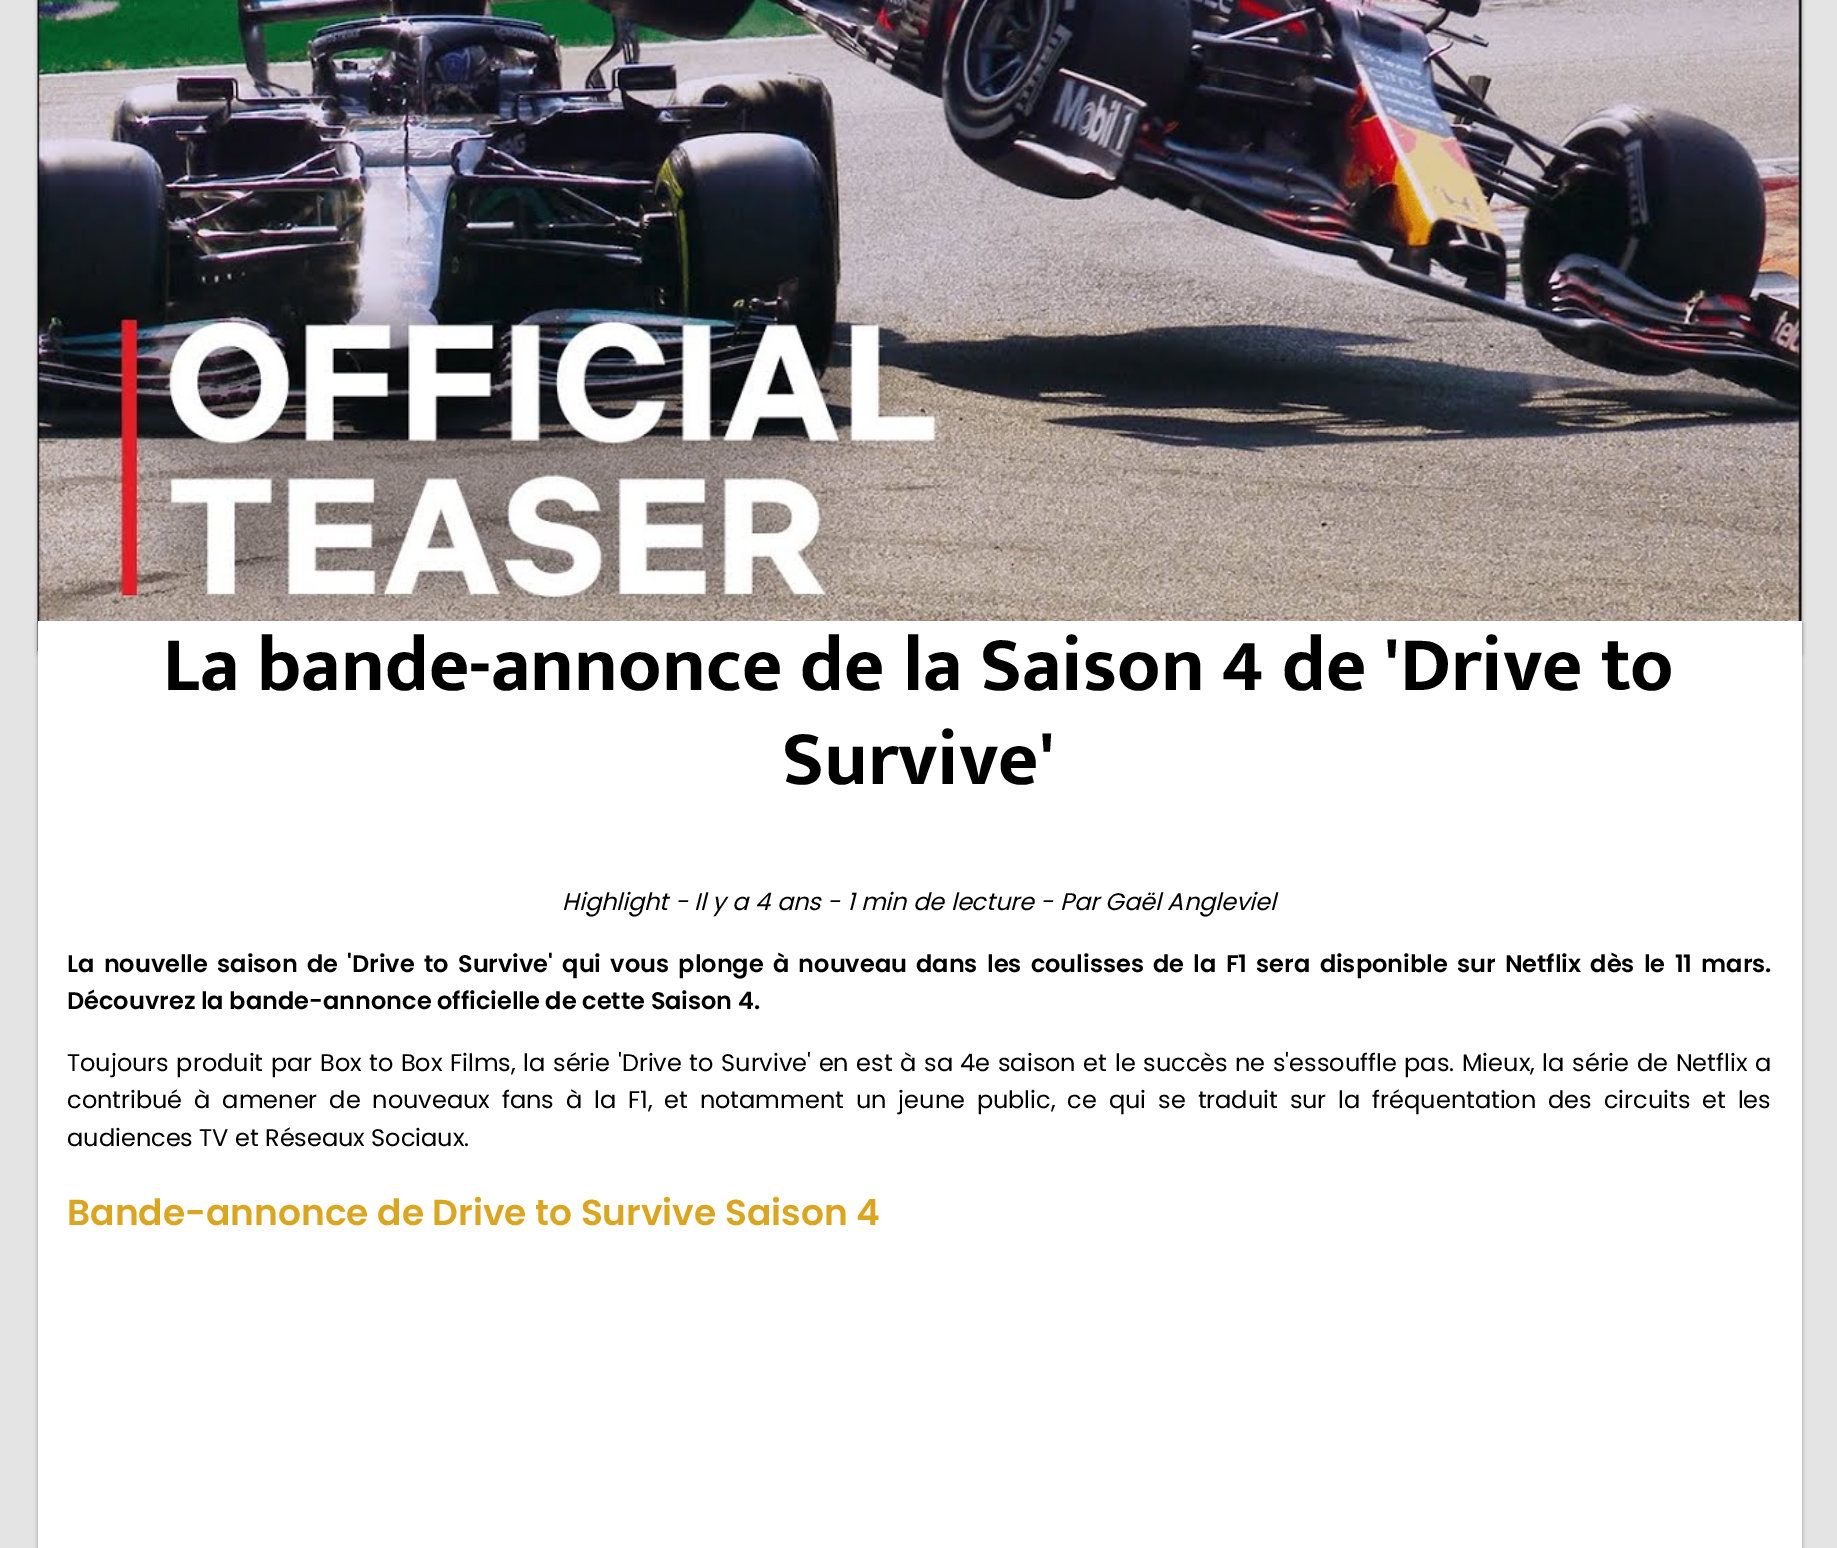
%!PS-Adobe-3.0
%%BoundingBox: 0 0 1837 1548
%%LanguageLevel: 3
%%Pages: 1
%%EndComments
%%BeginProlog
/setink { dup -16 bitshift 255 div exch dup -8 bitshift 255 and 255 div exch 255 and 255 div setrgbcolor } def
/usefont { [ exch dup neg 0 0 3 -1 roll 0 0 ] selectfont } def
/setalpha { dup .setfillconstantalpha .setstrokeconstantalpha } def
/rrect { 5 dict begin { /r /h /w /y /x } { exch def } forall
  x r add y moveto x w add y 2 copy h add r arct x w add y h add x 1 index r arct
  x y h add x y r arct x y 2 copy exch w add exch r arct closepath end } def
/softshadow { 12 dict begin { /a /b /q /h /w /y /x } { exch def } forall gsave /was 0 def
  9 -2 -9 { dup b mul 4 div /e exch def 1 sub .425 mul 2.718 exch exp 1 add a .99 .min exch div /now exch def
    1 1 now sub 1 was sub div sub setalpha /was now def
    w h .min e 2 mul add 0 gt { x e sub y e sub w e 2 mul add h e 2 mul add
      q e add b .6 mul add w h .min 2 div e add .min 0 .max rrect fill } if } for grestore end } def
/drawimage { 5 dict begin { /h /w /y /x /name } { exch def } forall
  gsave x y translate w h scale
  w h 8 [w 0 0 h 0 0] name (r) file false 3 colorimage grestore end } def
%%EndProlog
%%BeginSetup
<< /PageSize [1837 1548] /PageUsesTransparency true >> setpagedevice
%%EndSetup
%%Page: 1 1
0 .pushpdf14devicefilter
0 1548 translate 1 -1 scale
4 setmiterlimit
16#E4E4E4 setink
0 0 1837 1548 rectfill
16#949494 setink
38 -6 1764 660 0 2 1 softshadow
(img1.raw) 37 0 1765 651 drawimage
38 624 1764 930 0 2 1 softshadow
16#FFFFFF setink
38 621 1764 927 rectfill
/MuktaMahee-Bold 78 usefont
16#000000 setink
163 690 moveto (La bande-annonce de la Saison 4 de 'Drive to) show
782 784 moveto (Survive') show
/Poppins-Italic 24 usefont
562 910 moveto (Highlight - Il y a 4 ans - 1 min de lecture - Par Gaël Angleviel) show
/Poppins-SemiBold 24 usefont
67 972 moveto 3.6 0 32 (La nouvelle saison de 'Drive to Survive' qui vous plonge à nouveau dans les coulisses de la F1 sera disponible sur Netflix dès le 11 mars.) widthshow
67 1009 moveto (Découvrez la bande-annonce officielle de cette Saison 4.) show
/Poppins-Regular 24 usefont
67 1071 moveto 1.2 0 32 (Toujours produit par Box to Box Films, la série 'Drive to Survive' en est à sa 4e saison et le succès ne s'essouffle pas. Mieux, la série de Netflix a) widthshow
67 1108 moveto 5.5 0 32 (contribué à amener de nouveaux fans à la F1, et notamment un jeune public, ce qui se traduit sur la fréquentation des circuits et les) widthshow
67 1146 moveto (audiences TV et Réseaux Sociaux.) show
/Poppins-SemiBold 36 usefont
16#DAA520 setink
67 1225 moveto (Bande-annonce de Drive to Survive Saison 4) show
.poppdf14devicefilter showpage
%%EOF
